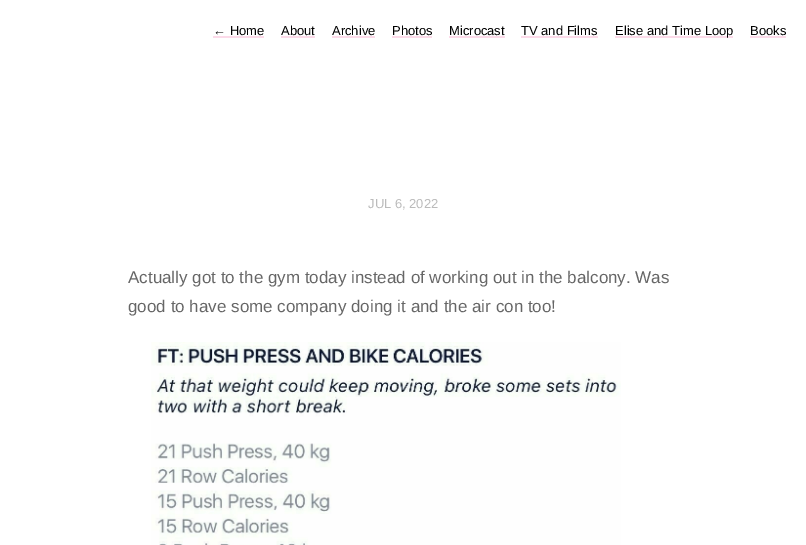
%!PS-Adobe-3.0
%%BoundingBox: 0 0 806 545
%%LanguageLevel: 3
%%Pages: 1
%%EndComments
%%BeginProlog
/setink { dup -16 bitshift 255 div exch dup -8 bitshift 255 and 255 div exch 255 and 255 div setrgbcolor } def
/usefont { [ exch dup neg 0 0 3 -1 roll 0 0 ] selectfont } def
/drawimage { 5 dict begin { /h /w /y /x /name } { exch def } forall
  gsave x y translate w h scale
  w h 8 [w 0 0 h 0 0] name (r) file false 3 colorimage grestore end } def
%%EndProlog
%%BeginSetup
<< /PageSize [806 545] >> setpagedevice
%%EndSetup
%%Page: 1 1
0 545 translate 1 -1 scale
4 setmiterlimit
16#FFFFFF setink
0 0 806 545 rectfill
/LiberationSans-Regular 13 usefont
16#000000 setink
213 35 moveto (← Home) show
16#FCDAE9 setink
213 36 51 2 rectfill
16#000000 setink
281 35 moveto (About) show
16#FCDAE9 setink
281 36 34 2 rectfill
16#000000 setink
332 35 moveto (Archive) show
16#FCDAE9 setink
332 36 43 2 rectfill
16#000000 setink
392 35 moveto (Photos) show
16#FCDAE9 setink
392 36 40 2 rectfill
16#000000 setink
449 35 moveto (Microcast) show
16#FCDAE9 setink
449 36 56 2 rectfill
16#000000 setink
521 35 moveto (TV and Films) show
16#FCDAE9 setink
521 36 77 2 rectfill
615 36 118 2 rectfill
16#000000 setink
615 35 moveto (Elise and Time Loop) show
750 35 moveto (Books) show
16#FCDAE9 setink
750 36 36 2 rectfill
16#BBBBBB setink
368 208 moveto (JUL 6, 2022) show
/LiberationSans-Regular 17 usefont
16#666666 setink
128 283 moveto (Actually got to the gym today instead of working out in the balcony. Was) show
128 312 moveto (good to have some company doing it and the air con too!) show
(img1.raw) 151 342 470 203 drawimage
showpage
%%EOF
